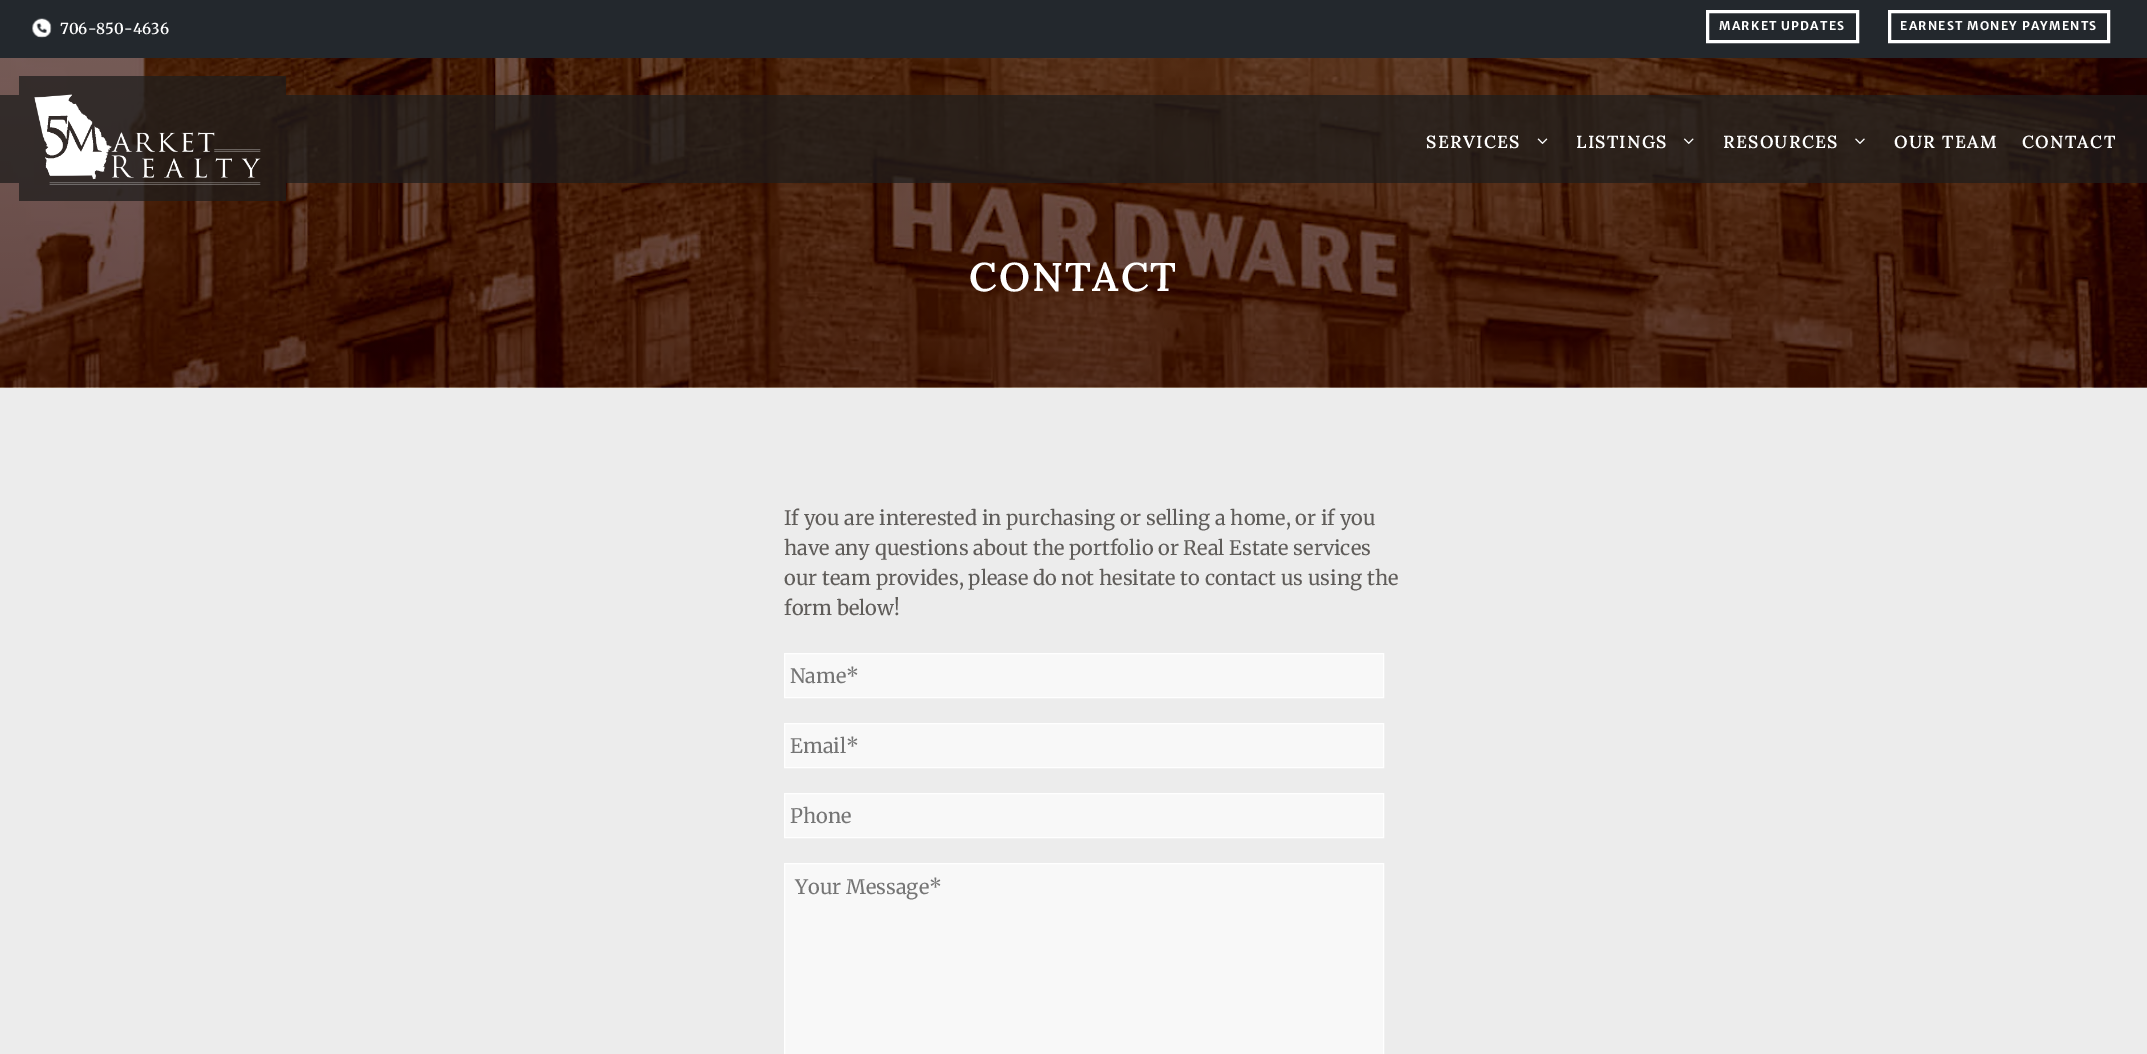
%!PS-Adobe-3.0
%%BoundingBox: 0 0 2147 1054
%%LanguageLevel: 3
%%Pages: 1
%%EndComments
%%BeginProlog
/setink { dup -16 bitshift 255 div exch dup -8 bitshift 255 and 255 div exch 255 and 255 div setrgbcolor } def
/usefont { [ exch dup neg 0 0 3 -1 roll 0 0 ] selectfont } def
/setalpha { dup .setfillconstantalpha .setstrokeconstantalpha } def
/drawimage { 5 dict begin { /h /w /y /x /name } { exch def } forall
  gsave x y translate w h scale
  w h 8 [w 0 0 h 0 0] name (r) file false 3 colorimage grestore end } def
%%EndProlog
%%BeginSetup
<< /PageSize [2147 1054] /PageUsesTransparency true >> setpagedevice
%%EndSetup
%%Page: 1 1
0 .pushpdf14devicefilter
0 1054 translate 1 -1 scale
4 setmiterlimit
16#ECECEC setink
0 0 2147 1054 rectfill
16#23282D setink
0 0 2147 58 rectfill
(img1.raw) 32 18 20 20 drawimage
/Merriweather-SemiBold 15 usefont
16#FFFFFF setink
60 34 moveto (706-850-4636) show
3 setlinewidth
1707.5 11.5 150 30 rectstroke
/MerriweatherSans-Bold 12 usefont
1719 30 moveto 1.25 0 (MARKET UPDATES) ashow
1889.5 11.5 219 30 rectstroke
1900 30 moveto 1.25 0 (EARNEST MONEY PAYMENTS) ashow
(img6.raw) 0 58 2147 330 drawimage
0.75 setalpha
[
    [0 95 2147 88 16#1E1D1C]
    [19 76 267 19 16#1E1D1C]
    [19 183 267 18 16#1E1D1C]
] { aload pop setink rectfill } forall
1 setalpha
(img2.raw) 34 94 227 91 drawimage
/Lora-SemiBold 17.5 usefont
16#FFFFFF setink
1426 148 moveto 1.25 0 (SERVICES) ashow
(img3.raw) 1537 138 11 6 drawimage
1576 148 moveto 1.25 0 (LISTINGS) ashow
(img4.raw) 1683 138 11 6 drawimage
1723 148 moveto 1.25 0 (RESOURCES) ashow
(img5.raw) 1855 138 10 6 drawimage
1894 148 moveto 1.25 0 (OUR TEAM) ashow
2022 148 moveto 1.25 0 (CONTACT) ashow
/Lora-SemiBold 40 usefont
969 291 moveto 2 0 (CONTACT) ashow
/Merriweather-Regular 20 usefont
16#5F5C59 setink
[
    [(If you are interested in purchasing or selling a home, or if you) 784 525]
    [(have any questions about the portfolio or Real Estate services) 784 555]
    [(our team provides, please do not hesitate to contact us using the) 784 585]
    [(form below!) 784 615]
] { aload pop moveto show } forall
16#F8F8F8 setink
784.5 653.5 moveto 1383.5 653.5 lineto 1383.5 697.5 lineto 784.5 697.5 lineto closepath gsave fill grestore
16#FFFFFF setink
1 setlinewidth
stroke
16#757575 setink
790 683 moveto (Name*) show
16#F8F8F8 setink
784.5 723.5 moveto 1383.5 723.5 lineto 1383.5 767.5 lineto 784.5 767.5 lineto closepath gsave fill grestore
16#FFFFFF setink
stroke
16#757575 setink
790 753 moveto (Email*) show
16#F8F8F8 setink
784.5 793.5 moveto 1383.5 793.5 lineto 1383.5 837.5 lineto 784.5 837.5 lineto closepath gsave fill grestore
16#FFFFFF setink
stroke
16#757575 setink
790 823 moveto (Phone) show
16#F8F8F8 setink
784.5 863.5 moveto 1383.5 863.5 lineto 1383.5 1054.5 lineto 784.5 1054.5 lineto closepath gsave fill grestore
16#FFFFFF setink
stroke
16#757575 setink
795 894 moveto (Your Message*) show
.poppdf14devicefilter showpage
%%EOF
